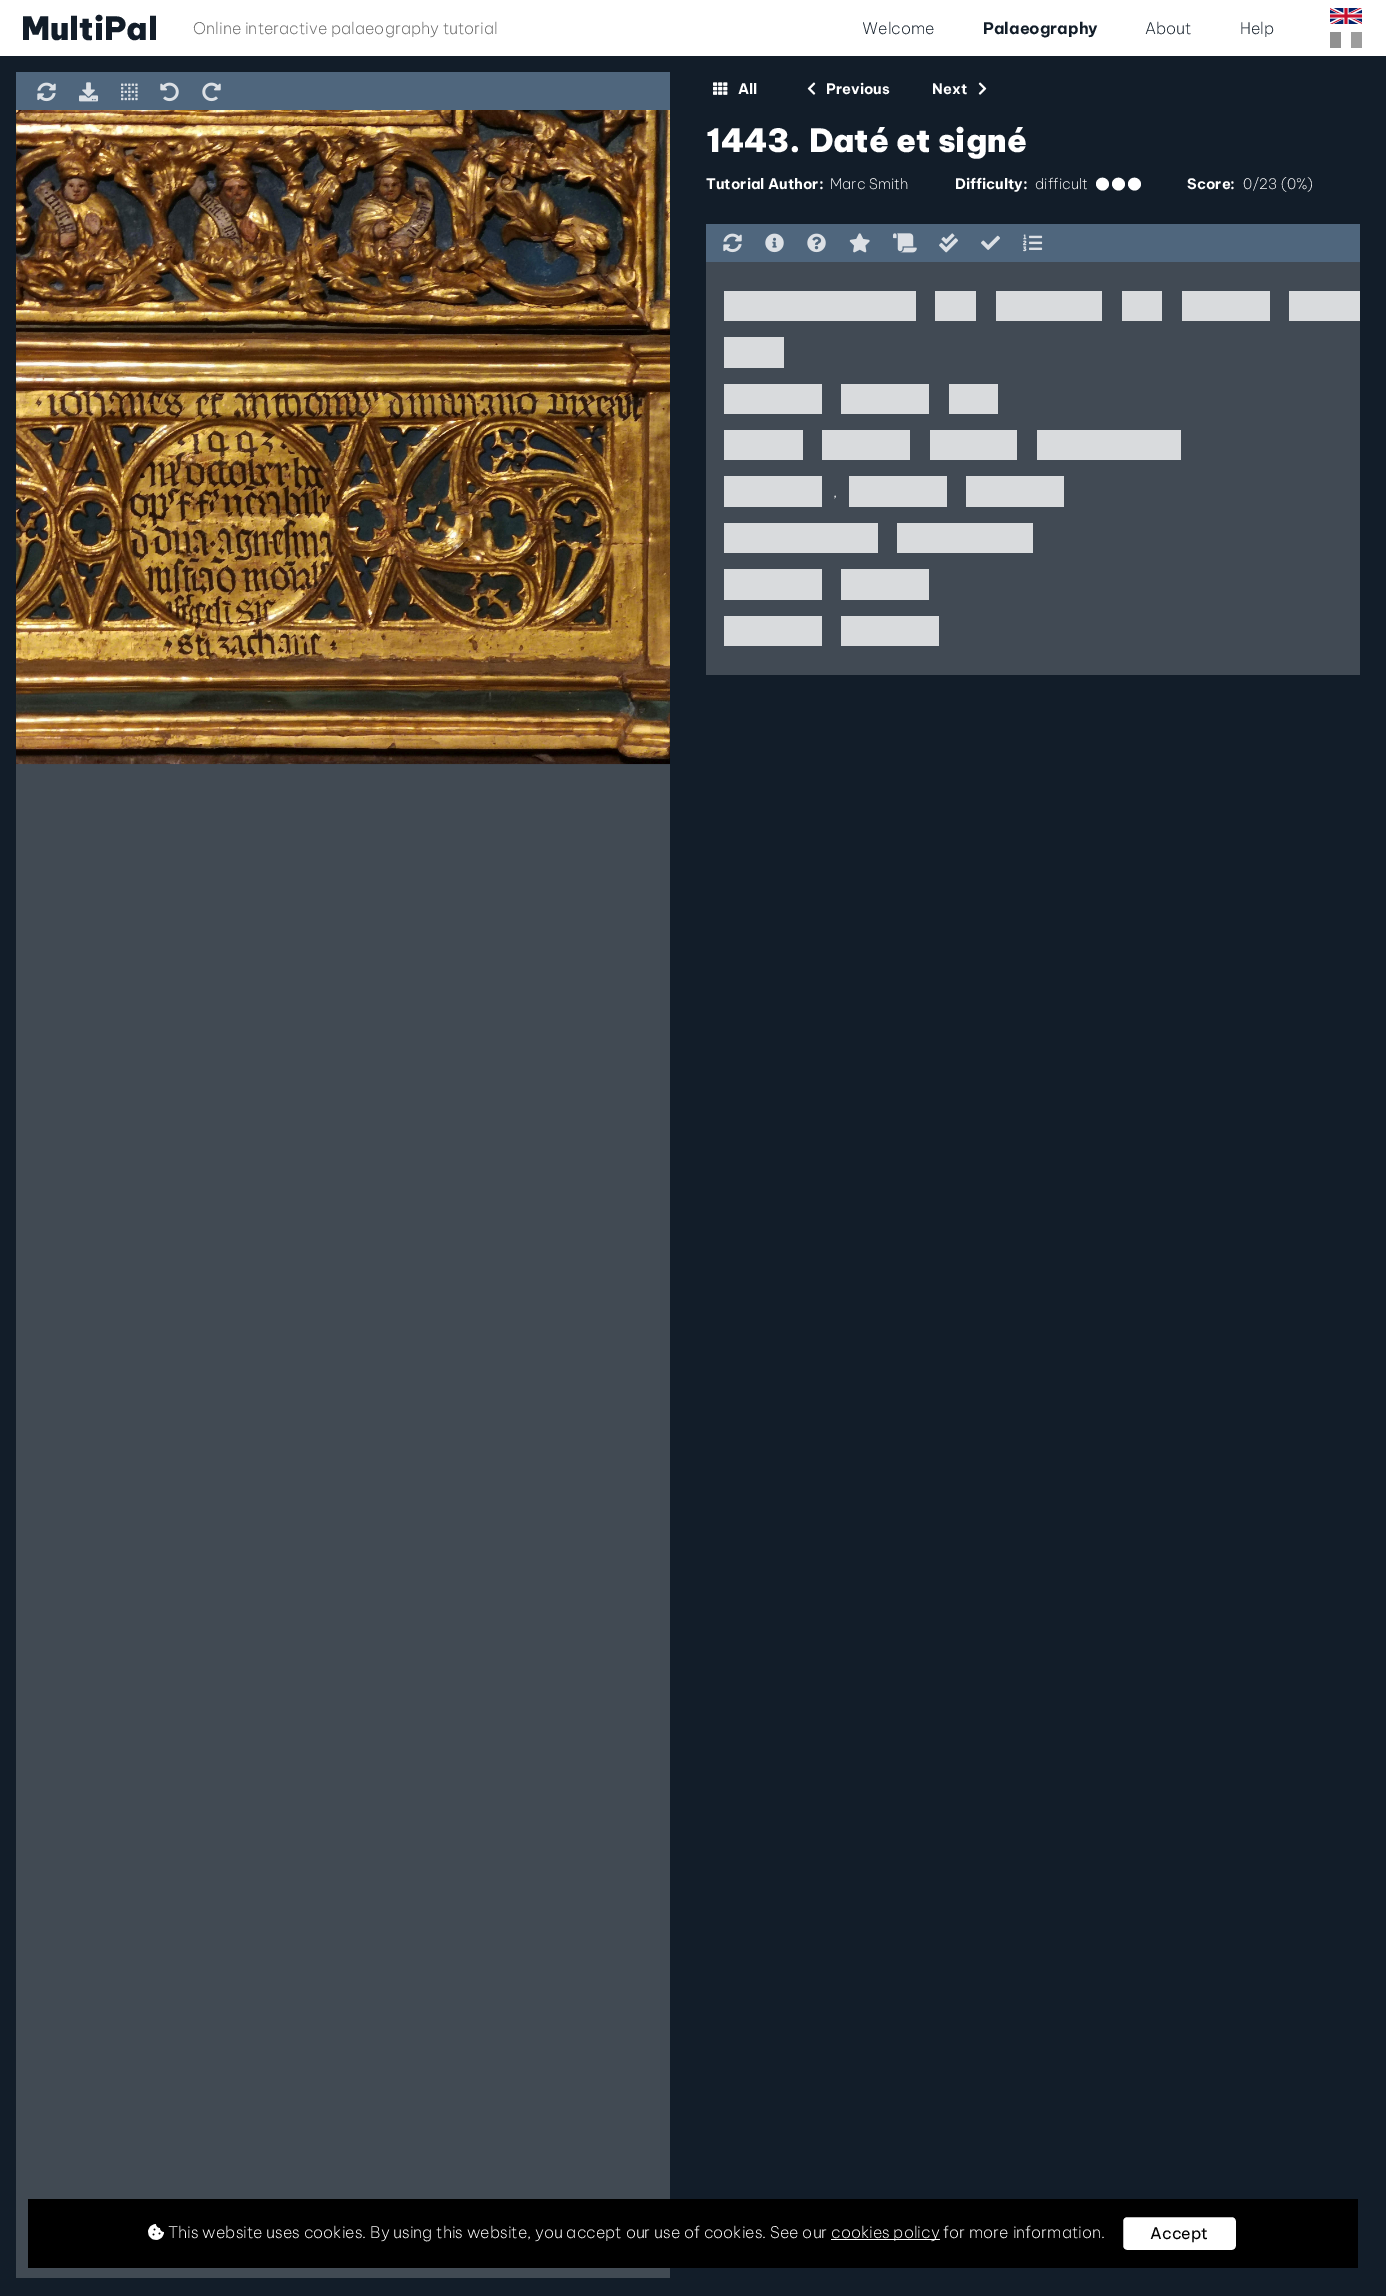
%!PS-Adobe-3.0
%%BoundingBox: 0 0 1386 2296
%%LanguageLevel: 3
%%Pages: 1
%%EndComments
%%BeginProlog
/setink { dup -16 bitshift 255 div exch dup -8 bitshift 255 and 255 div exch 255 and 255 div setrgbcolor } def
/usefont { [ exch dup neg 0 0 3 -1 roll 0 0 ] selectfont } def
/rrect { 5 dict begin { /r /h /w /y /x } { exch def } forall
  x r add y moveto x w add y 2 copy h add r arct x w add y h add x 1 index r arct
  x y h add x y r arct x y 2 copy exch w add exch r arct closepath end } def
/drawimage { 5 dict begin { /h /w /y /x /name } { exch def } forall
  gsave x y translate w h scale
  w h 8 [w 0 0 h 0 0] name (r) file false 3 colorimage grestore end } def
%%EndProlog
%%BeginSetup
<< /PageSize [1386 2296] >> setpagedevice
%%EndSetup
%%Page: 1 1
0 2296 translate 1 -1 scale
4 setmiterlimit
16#121D29 setink
0 0 1386 2296 rectfill
16#FFFFFF setink
0 0 1386 56 rectfill
/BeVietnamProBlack-Black 32 usefont
16#121D29 setink
21 40 moveto (MultiPal) show
/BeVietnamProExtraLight-ExtraLight 16 usefont
16#696969 setink
193 34 moveto (Online interactive palaeography tutorial) show
16#121D29 setink
862 34 moveto (Welcome) show
/BeVietnamPro-Bold 16 usefont
983 34 moveto (Palaeography) show
/BeVietnamProExtraLight-ExtraLight 16 usefont
1145 34 moveto (About) show
1240 34 moveto (Help) show
(img1.raw) 1330 8 32 16 drawimage
[
    [1351 32 11 16 16#9D9D9D]
    [1330 32 11 16 16#909090]
    [16 72 654 38 16#4F667D]
] { aload pop setink rectfill } forall
(img2.raw) 37 82 19 20 drawimage
(img3.raw) 79 82 20 20 drawimage
(img4.raw) 121 83 17 18 drawimage
(img5.raw) 160 82 19 20 drawimage
(img6.raw) 202 82 19 20 drawimage
16#414A53 setink
16 764 654 1514 rectfill
(img7.raw) 16 110 654 655 drawimage
(img8.raw) 713 82 15 13 drawimage
/BeVietnamPro-Bold 14.5 usefont
16#FFFFFF setink
738 94 moveto (All) show
(img9.raw) 807 82 9 13 drawimage
826 94 moveto (Previous) show
932 94 moveto (Next) show
(img10.raw) 978 82 9 13 drawimage
/BeVietnamProBlack-Black 32 usefont
706 152 moveto (1443. Daté et signé) show
/BeVietnamPro-Bold 14.5 usefont
706 189 moveto (Tutorial Author:) show
/BeVietnamProExtraLight-ExtraLight 14.5 usefont
830 189 moveto (Marc Smith) show
/BeVietnamPro-Bold 14.5 usefont
955 189 moveto (Difficulty:) show
/BeVietnamProExtraLight-ExtraLight 14.5 usefont
1035 189 moveto (difficult) show
1098 179.5 moveto 1104 174 1113 182.5 1107 188.5 curveto 1101 194.5 1092 185.5 1098 179.5 curveto closepath 1114 179.5 moveto 1120 174 1129 182.5 1123 188.5 curveto 1117 194.5 1108 185.5 1114 179.5 curveto closepath 1130 179.5 moveto 1136 174 1145 182.5 1139 188.5 curveto 1133 194.5 1124 185.5 1130 179.5 curveto closepath fill
/BeVietnamPro-Bold 14.5 usefont
1187 189 moveto (Score:) show
/BeVietnamProExtraLight-ExtraLight 14.5 usefont
1243 189 moveto (0/23 \(0%\)) show
16#4F667D setink
706 224 654 38 rectfill
(img2.raw) 723 233 19 20 drawimage
(img11.raw) 765 233 19 20 drawimage
(img12.raw) 807 233 19 20 drawimage
(img13.raw) 849 233 21 20 drawimage
(img14.raw) 893 233 24 20 drawimage
(img15.raw) 939 233 19 20 drawimage
(img16.raw) 981 235 19 15 drawimage
(img17.raw) 1023 234 20 18 drawimage
[
    [706 262 654 413 16#414A54]
    [724 291 192 30 16#D9DBDD]
    [935 291 41 30 16#D9DBDD]
    [996 291 106 30 16#D9DBDD]
    [1122 291 40 30 16#D9DBDD]
    [1182 291 88 30 16#D9DBDD]
    [1289 291 71 30 16#D9DBDD]
    [724 337 60 31 16#D9DBDD]
    [724 384 98 30 16#D9DBDD]
    [841 384 88 30 16#D9DBDD]
    [949 384 49 30 16#D9DBDD]
    [724 430 79 30 16#D9DBDD]
    [822 430 88 30 16#D9DBDD]
    [930 430 87 30 16#D9DBDD]
    [1037 430 144 30 16#D9DBDD]
    [724 476 98 31 16#D9DBDD]
] { aload pop setink rectfill } forall
/BeVietnamProExtraLight-ExtraLight 16 usefont
16#FFFFFF setink
833 497 moveto (,) show
[
    [849 476 98 31 16#D9DBDD]
    [966 476 98 31 16#D9DBDD]
    [724 523 154 30 16#D9DBDD]
    [897 523 136 30 16#D9DBDD]
    [724 569 98 31 16#D9DBDD]
    [841 569 88 31 16#D9DBDD]
    [724 616 98 30 16#D9DBDD]
    [841 616 98 30 16#D9DBDD]
    [28 2199 1330 69 16#000000]
] { aload pop setink rectfill } forall
(img18.raw) 148 2224 16 16 drawimage
16#FFFFFF setink
168 2238 moveto (This website uses cookies. By using this website, you accept our use of cookies. See our) show
831 2239 109 1 rectfill
831 2238 moveto (cookies policy for more information.) show
1122 2216 115 35 5 rrect gsave fill grestore
16#000000 setink
2 setlinewidth
stroke
/BeVietnamPro-Regular 16 usefont
1150 2239 moveto (Accept) show
showpage
%%EOF
